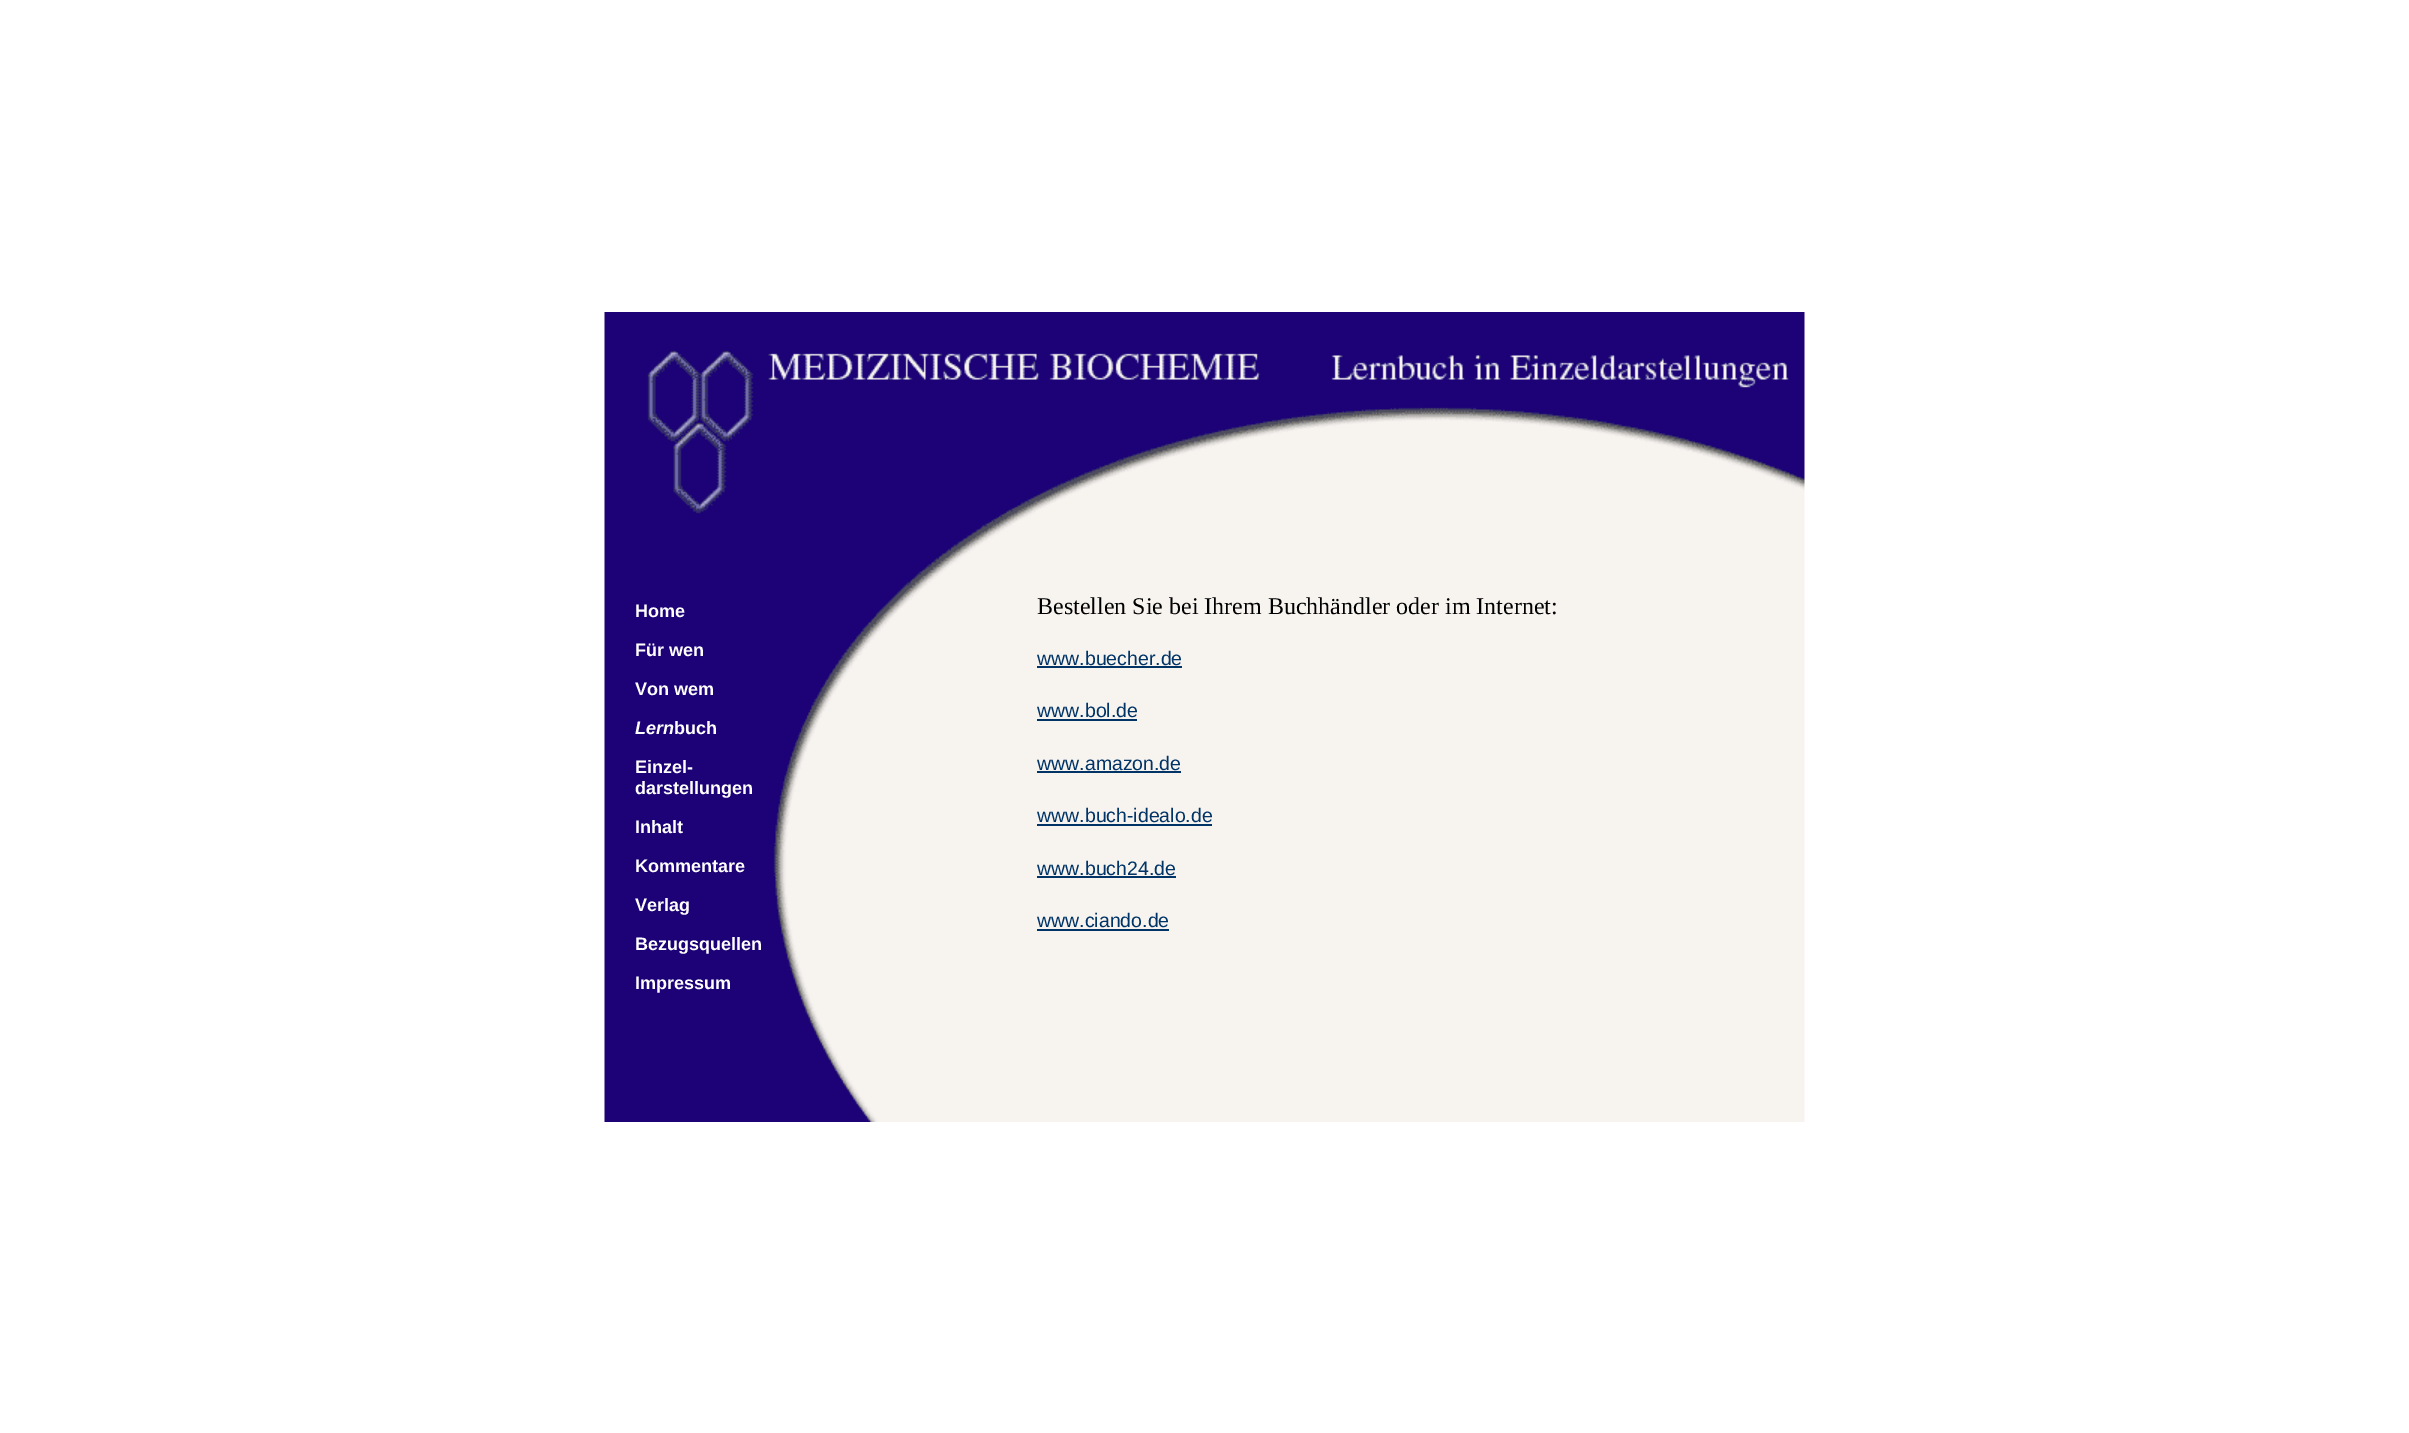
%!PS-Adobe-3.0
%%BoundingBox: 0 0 2409 1433
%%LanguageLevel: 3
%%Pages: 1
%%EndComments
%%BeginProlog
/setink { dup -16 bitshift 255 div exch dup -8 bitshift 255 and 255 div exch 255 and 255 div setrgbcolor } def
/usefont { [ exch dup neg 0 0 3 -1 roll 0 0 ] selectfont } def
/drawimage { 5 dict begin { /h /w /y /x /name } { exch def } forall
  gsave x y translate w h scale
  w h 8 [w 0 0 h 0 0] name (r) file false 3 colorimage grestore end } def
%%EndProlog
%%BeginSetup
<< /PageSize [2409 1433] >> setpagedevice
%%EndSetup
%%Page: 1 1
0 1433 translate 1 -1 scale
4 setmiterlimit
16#FFFFFF setink
0 0 2409 1433 rectfill
(img1.raw) 604 312 1201 810 drawimage
/LiberationSans-Bold 18 usefont
[
    [(Home) 635 617]
    [(Für wen) 635 656]
    [(Von wem) 635 695]
] { aload pop moveto show } forall
/LiberationSans-BoldItalic 18 usefont
635 734 moveto (Lern) show
/LiberationSans-Bold 18 usefont
[
    [(buch) 674 734]
    [(Einzel-) 635 773]
    [(darstellungen) 635 794]
    [(Inhalt) 635 833]
    [(Kommentare) 635 872]
    [(Verlag) 635 911]
    [(Bezugsquellen) 635 950]
    [(Impressum) 635 989]
] { aload pop moveto show } forall
/LiberationSerif-Regular 24 usefont
16#000000 setink
1037 614 moveto (Bestellen Sie bei Ihrem Buchhändler oder im Internet:) show
/LiberationSans-Regular 19.5 usefont
16#003366 setink
1037 665 moveto (www.buecher.de) show
1037 666 145 2 rectfill
1037 717 moveto (www.bol.de) show
1037 719 100 2 rectfill
1037 770 moveto (www.amazon.de) show
1037 771 144 2 rectfill
1037 822 moveto (www.buch-idealo.de) show
1037 824 175 2 rectfill
1037 875 moveto (www.buch24.de) show
1037 876 139 2 rectfill
1037 927 moveto (www.ciando.de) show
1037 929 132 2 rectfill
showpage
%%EOF
